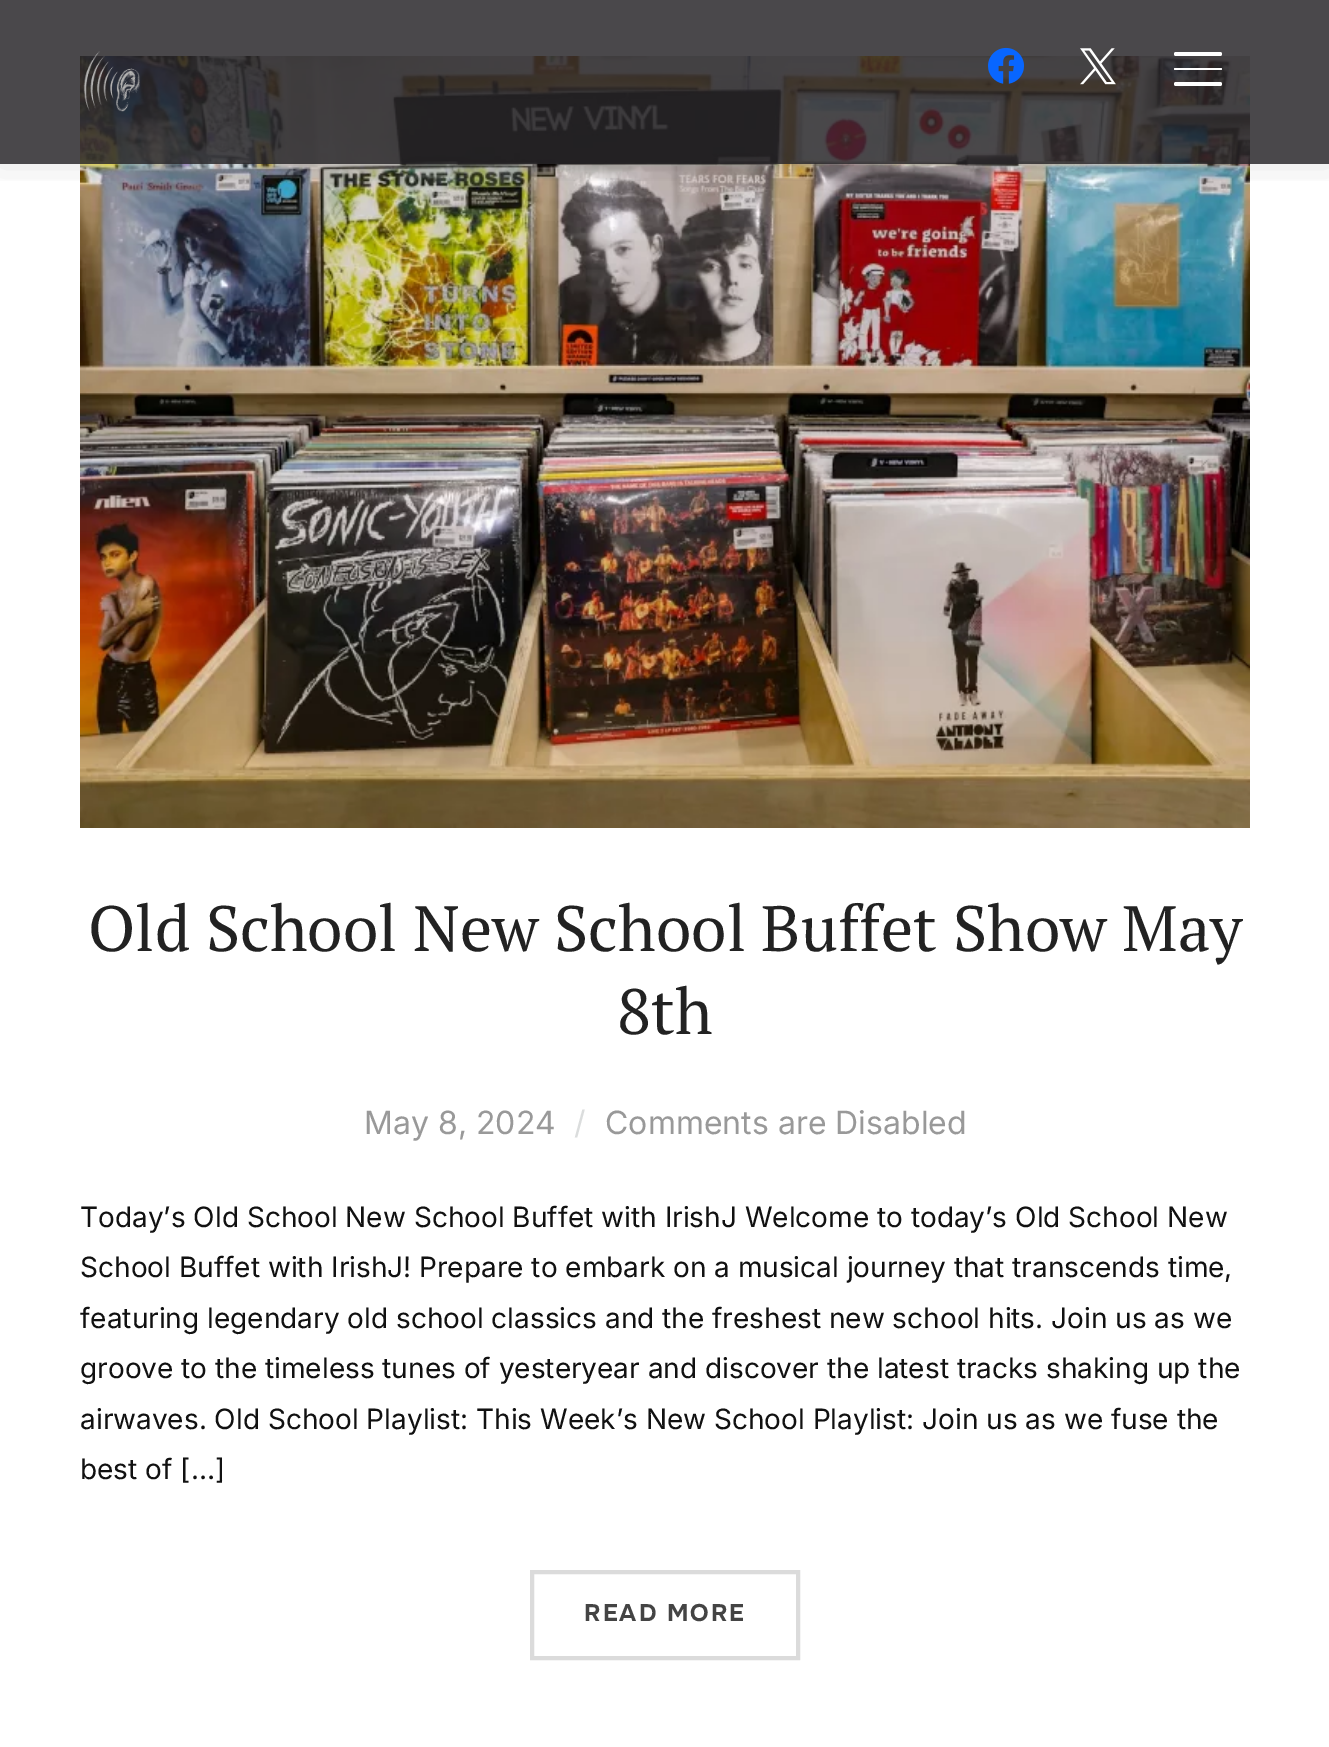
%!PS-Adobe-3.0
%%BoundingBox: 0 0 1329 1747
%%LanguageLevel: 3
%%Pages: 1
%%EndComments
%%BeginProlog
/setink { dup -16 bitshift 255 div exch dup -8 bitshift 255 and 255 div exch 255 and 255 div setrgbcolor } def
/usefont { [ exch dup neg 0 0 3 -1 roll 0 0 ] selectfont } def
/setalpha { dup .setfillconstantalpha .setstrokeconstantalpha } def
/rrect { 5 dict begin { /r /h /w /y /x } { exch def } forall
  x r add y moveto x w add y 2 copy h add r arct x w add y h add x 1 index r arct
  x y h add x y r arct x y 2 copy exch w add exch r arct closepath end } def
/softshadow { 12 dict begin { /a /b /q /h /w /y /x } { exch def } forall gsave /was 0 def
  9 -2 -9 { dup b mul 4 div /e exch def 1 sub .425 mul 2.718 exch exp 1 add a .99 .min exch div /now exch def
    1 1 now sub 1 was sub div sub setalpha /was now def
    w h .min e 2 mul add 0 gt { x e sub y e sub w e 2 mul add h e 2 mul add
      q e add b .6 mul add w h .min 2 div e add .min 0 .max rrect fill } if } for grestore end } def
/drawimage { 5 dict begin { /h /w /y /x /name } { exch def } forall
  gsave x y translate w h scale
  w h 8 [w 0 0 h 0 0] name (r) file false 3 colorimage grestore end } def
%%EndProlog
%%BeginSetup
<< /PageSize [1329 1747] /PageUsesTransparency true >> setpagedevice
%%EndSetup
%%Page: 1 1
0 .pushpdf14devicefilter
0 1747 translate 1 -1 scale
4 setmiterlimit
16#FFFFFF setink
0 0 1329 1747 rectfill
(img4.raw) 80 56 1170 772 drawimage
gsave
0 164 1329 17 rectclip
16#000000 setink
-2 -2 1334 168 0 18 0.1 softshadow
grestore
0.84 setalpha
16#272528 setink
0 0 1329 164 rectfill
1 setalpha
(img1.raw) 83 51 57 61 drawimage
(img2.raw) 988 47 36 37 drawimage
(img3.raw) 1080 48 36 37 drawimage
16#FFFFFF setink
1174 52 48 4 2 rrect fill
1174 68 48 2 1 rrect fill
1174 82 48 4 2 rrect fill
/PTSerif-Regular 64 usefont
16#222222 setink
88 951 moveto (Old School New School Buffet Show May) show
617 1034 moveto (8th) show
/Inter-Regular 32 usefont
16#999999 setink
364 1134 moveto (May 8, 2024) show
16#DBDDDD setink
574 1134 moveto (/) show
16#999999 setink
605 1134 moveto (Comments are Disabled) show
/Inter-Regular 28 usefont
16#111111 setink
[
    [(Today’s Old School New School Buffet with IrishJ Welcome to today’s Old School New) 80 1227]
    [(School Buffet with IrishJ! Prepare to embark on a musical journey that transcends time,) 80 1277]
    [(featuring legendary old school classics and the freshest new school hits. Join us as we) 80 1328]
    [(groove to the timeless tunes of yesteryear and discover the latest tracks shaking up the) 80 1378]
    [(airwaves. Old School Playlist: This Week’s New School Playlist: Join us as we fuse the) 80 1429]
    [(best of […]) 80 1479]
] { aload pop moveto show } forall
16#DBDBDB setink
4 setlinewidth
532 1572 266 86 rectstroke
/Onest-Bold 24 usefont
16#444444 setink
584 1621 moveto 2 0 (READ MORE) ashow
.poppdf14devicefilter showpage
%%EOF
